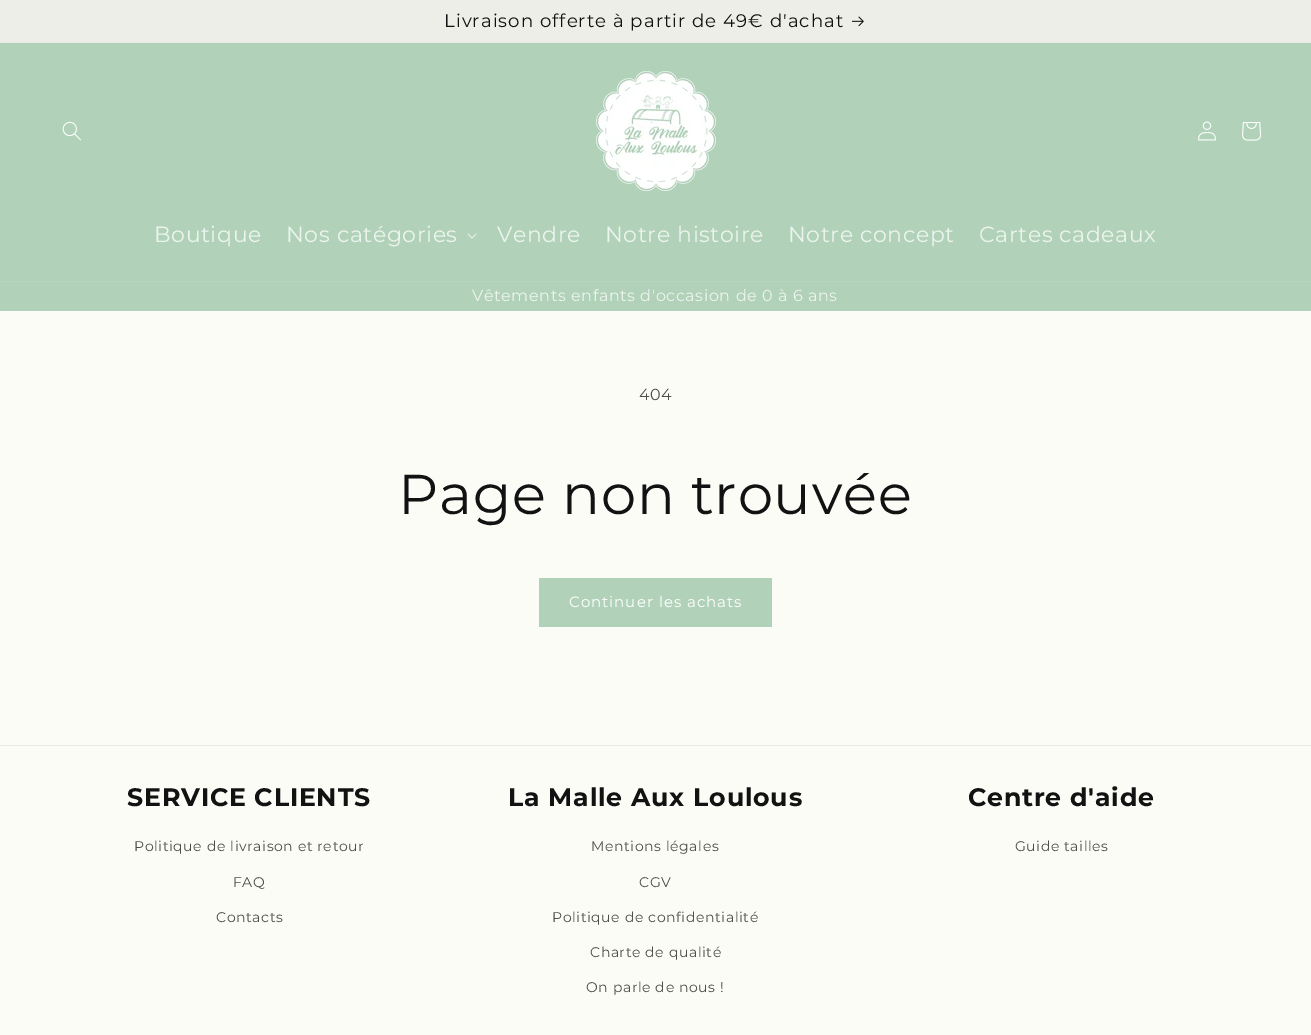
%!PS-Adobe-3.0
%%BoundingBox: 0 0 1311 1035
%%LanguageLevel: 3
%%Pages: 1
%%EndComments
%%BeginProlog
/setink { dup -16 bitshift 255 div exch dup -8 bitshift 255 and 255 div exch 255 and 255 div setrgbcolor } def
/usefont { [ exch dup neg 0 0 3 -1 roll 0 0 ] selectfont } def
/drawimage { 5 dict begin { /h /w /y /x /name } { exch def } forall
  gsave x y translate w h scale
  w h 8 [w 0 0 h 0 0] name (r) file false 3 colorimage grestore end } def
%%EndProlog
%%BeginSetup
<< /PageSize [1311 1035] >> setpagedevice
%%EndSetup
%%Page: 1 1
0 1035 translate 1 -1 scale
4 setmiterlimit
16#FCFCF7 setink
0 0 1311 1035 rectfill
16#E9E9E5 setink
0 42 1311 1 rectfill
16#EEEEE9 setink
0 0 1311 42 rectfill
/Montserrat-Regular 18.2 usefont
16#121212 setink
444 27 moveto 1 0 (Livraison offerte à partir de 49€ d'achat) ashow
(img1.raw) 852 16 12 11 drawimage
16#B1D2B9 setink
0 43 1311 238 rectfill
16#B7D6BF setink
0 281 1311 1 rectfill
(img2.raw) 62 121 19 20 drawimage
(img3.raw) 596 71 120 120 drawimage
(img4.raw) 1198 121 18 20 drawimage
(img5.raw) 1242 122 20 19 drawimage
/Montserrat-Regular 22 usefont
16#ECF4EE setink
154 242 moveto 0.6 0 (Boutique) ashow
286 242 moveto 0.6 0 (Nos catégories) ashow
(img6.raw) 467 233 10 6 drawimage
497 242 moveto 0.6 0 (Vendre) ashow
605 242 moveto 0.6 0 (Notre histoire) ashow
788 242 moveto 0.6 0 (Notre concept) ashow
979 242 moveto 0.6 0 (Cartes cadeaux) ashow
16#B1D2B9 setink
0 282 1311 29 rectfill
/Montserrat-Regular 16 usefont
16#ECF4EE setink
472 301 moveto 0.6 0 (Vêtements enfants d'occasion de 0 à 6 ans) ashow
16#4D4D4B setink
639 400 moveto 0.6 0 (404) ashow
/Montserrat-Regular 56 usefont
16#121212 setink
398 514 moveto 0.8 0 (Page non trouvée) ashow
16#B1D2B9 setink
539 578 233 49 rectfill
/Montserrat-Regular 15 usefont
16#FFFFFF setink
569 607 moveto 1 0 (Continuer les achats) ashow
16#E9E9E5 setink
0 745 1311 1 rectfill
/Montserrat-Bold 25.25 usefont
16#121212 setink
127 806 moveto 0.8 0 (SERVICE CLIENTS) ashow
/Montserrat-Regular 14 usefont
16#4D4D4B setink
134 851 moveto 0.6 0 (Politique de livraison et retour) ashow
233 887 moveto 0.6 0 (FAQ) ashow
216 922 moveto 0.6 0 (Contacts) ashow
/Montserrat-Bold 25.25 usefont
16#121212 setink
508 806 moveto 0.8 0 (La Malle Aux Loulous) ashow
/Montserrat-Regular 14 usefont
16#4D4D4B setink
591 851 moveto 0.6 0 (Mentions légales) ashow
639 887 moveto 0.6 0 (CGV) ashow
552 922 moveto 0.6 0 (Politique de confidentialité) ashow
590 957 moveto 0.6 0 (Charte de qualité) ashow
586 992 moveto 0.6 0 (On parle de nous !) ashow
/Montserrat-Bold 25.25 usefont
16#121212 setink
968 806 moveto 0.8 0 (Centre d'aide) ashow
/Montserrat-Regular 14 usefont
16#4D4D4B setink
1015 851 moveto 0.6 0 (Guide tailles) ashow
showpage
%%EOF
